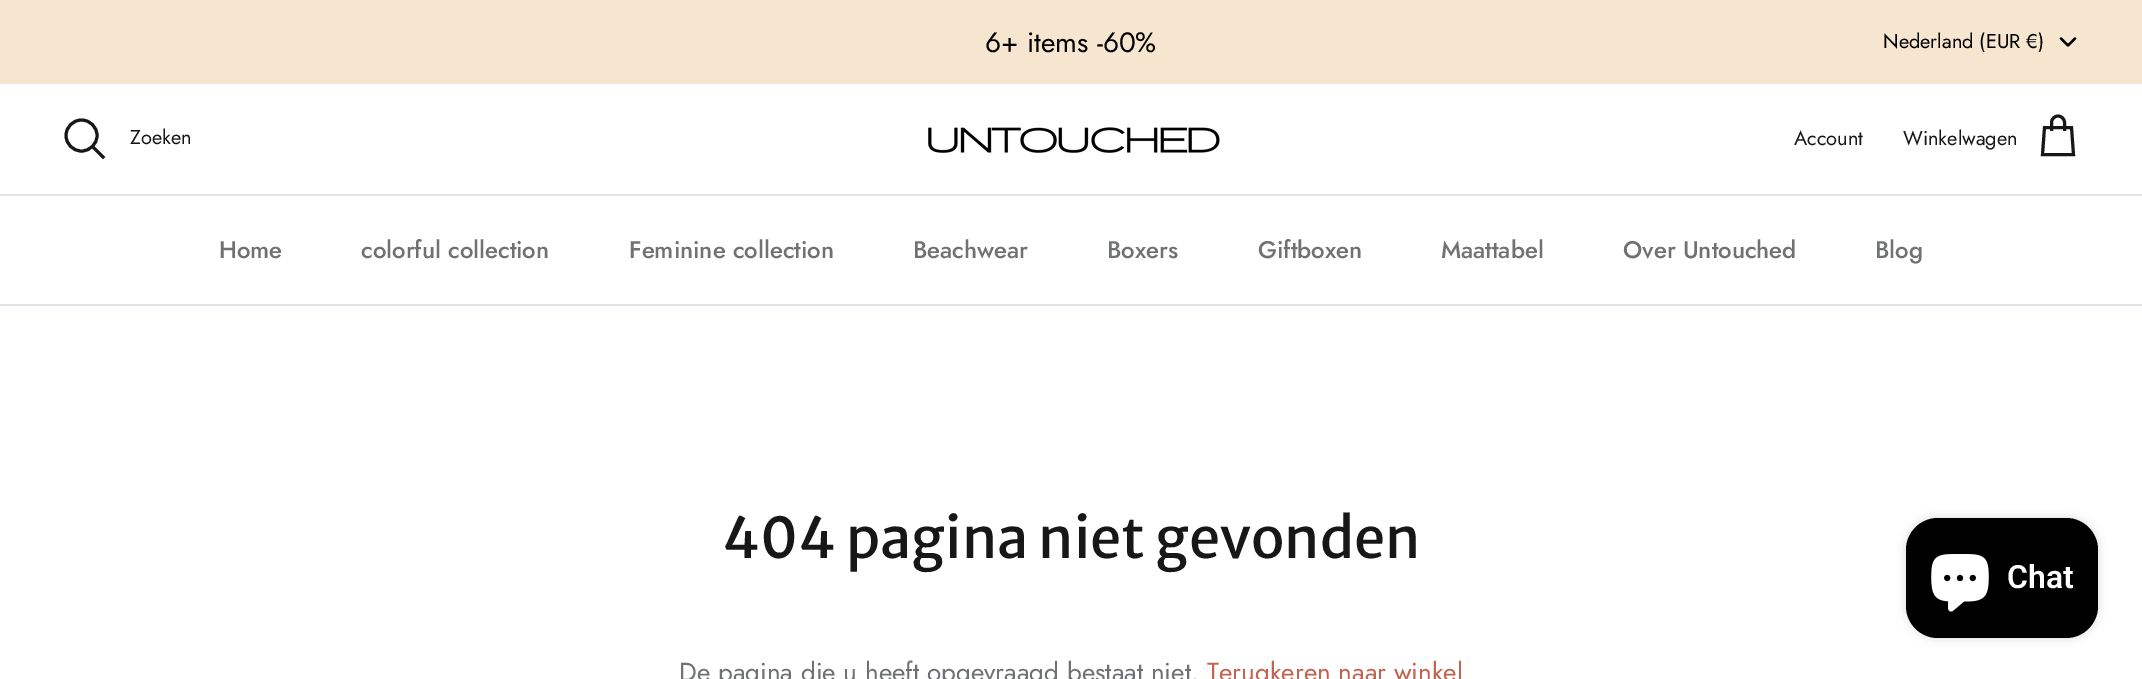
%!PS-Adobe-3.0
%%BoundingBox: 0 0 2142 679
%%LanguageLevel: 3
%%Pages: 1
%%EndComments
%%BeginProlog
/setink { dup -16 bitshift 255 div exch dup -8 bitshift 255 and 255 div exch 255 and 255 div setrgbcolor } def
/usefont { [ exch dup neg 0 0 3 -1 roll 0 0 ] selectfont } def
/setalpha { dup .setfillconstantalpha .setstrokeconstantalpha } def
/disc { newpath 0 360 arc closepath } def
/rrect { 5 dict begin { /r /h /w /y /x } { exch def } forall
  x r add y moveto x w add y 2 copy h add r arct x w add y h add x 1 index r arct
  x y h add x y r arct x y 2 copy exch w add exch r arct closepath end } def
/softshadow { 12 dict begin { /a /b /q /h /w /y /x } { exch def } forall gsave /was 0 def
  9 -2 -9 { dup b mul 4 div /e exch def 1 sub .425 mul 2.718 exch exp 1 add a .99 .min exch div /now exch def
    1 1 now sub 1 was sub div sub setalpha /was now def
    w h .min e 2 mul add 0 gt { x e sub y e sub w e 2 mul add h e 2 mul add
      q e add b .6 mul add w h .min 2 div e add .min 0 .max rrect fill } if } for grestore end } def
/drawimage { 5 dict begin { /h /w /y /x /name } { exch def } forall
  gsave x y translate w h scale
  w h 8 [w 0 0 h 0 0] name (r) file false 3 colorimage grestore end } def
%%EndProlog
%%BeginSetup
<< /PageSize [2142 679] /PageUsesTransparency true >> setpagedevice
%%EndSetup
%%Page: 1 1
0 .pushpdf14devicefilter
0 679 translate 1 -1 scale
4 setmiterlimit
16#FFFFFF setink
0 0 2142 679 rectfill
16#F6E5CF setink
0 0 2142 84 rectfill
/Jost-Regular 28 usefont
16#000000 setink
985 52 moveto (6+ items -60%) show
/Jost-Regular 20 usefont
1883 48 moveto (Nederland \(EUR €\)) show
2.3 setlinewidth
1 setlinecap
1 setlinejoin
2061 38.5 moveto 2068 45.5 lineto 2075 38.5 lineto stroke
16#DFE3E8 setink
0 194 2142 2 rectfill
16#171717 setink
3 setlinewidth
0 setlinecap
0 setlinejoin
81.5 135.5 15.5 disc stroke
130 144 moveto (Zoeken) show
2 setlinecap
94 148 moveto 103 157 lineto stroke
(img1.raw) 928 127 292 26 drawimage
1794 145 moveto (Account) show
1903 145 moveto (Winkelwagen) show
0 setlinecap
2064.5 131 moveto 2064.5 122.5 lineto 2064.5 119 2061.5 116 2058 116 curveto 2054.5 116 2051.5 119 2051.5 122.5 curveto 2051.5 131 lineto 2044.5 127.5 moveto 2071.5 127.5 lineto 2073.5 154.5 lineto 2042.5 154.5 lineto closepath stroke
16#DFE3E8 setink
0 304 2142 2 rectfill
/Jost-Medium 24 usefont
16#707173 setink
[
    [(Home) 219 258]
    [(colorful collection) 361 258]
    [(Feminine collection) 629 258]
    [(Beachwear) 913 258]
    [(Boxers) 1107 258]
    [(Giftboxen) 1258 258]
    [(Maattabel) 1441 258]
    [(Over Untouched) 1623 258]
    [(Blog) 1875 258]
] { aload pop moveto show } forall
/MerriweatherSans-Regular 56 usefont
16#171717 setink
722 558 moveto (404 pagina niet gevonden) show
/Jost-Regular 26 usefont
16#707173 setink
679 681 moveto (De pagina die u heeft opgevraagd bestaat niet.) show
16#C16452 setink
1207 681 moveto (Terugkeren naar winkel) show
16#000000 setink
1906 518 192 120 32 5 0.15 softshadow
1906 518 192 120 32 rrect fill
(img2.raw) 1931 554 58 58 drawimage
/Roboto-SemiBold 32 usefont
16#FFFFFF setink
2007 588 moveto (Chat) show
.poppdf14devicefilter showpage
%%EOF
